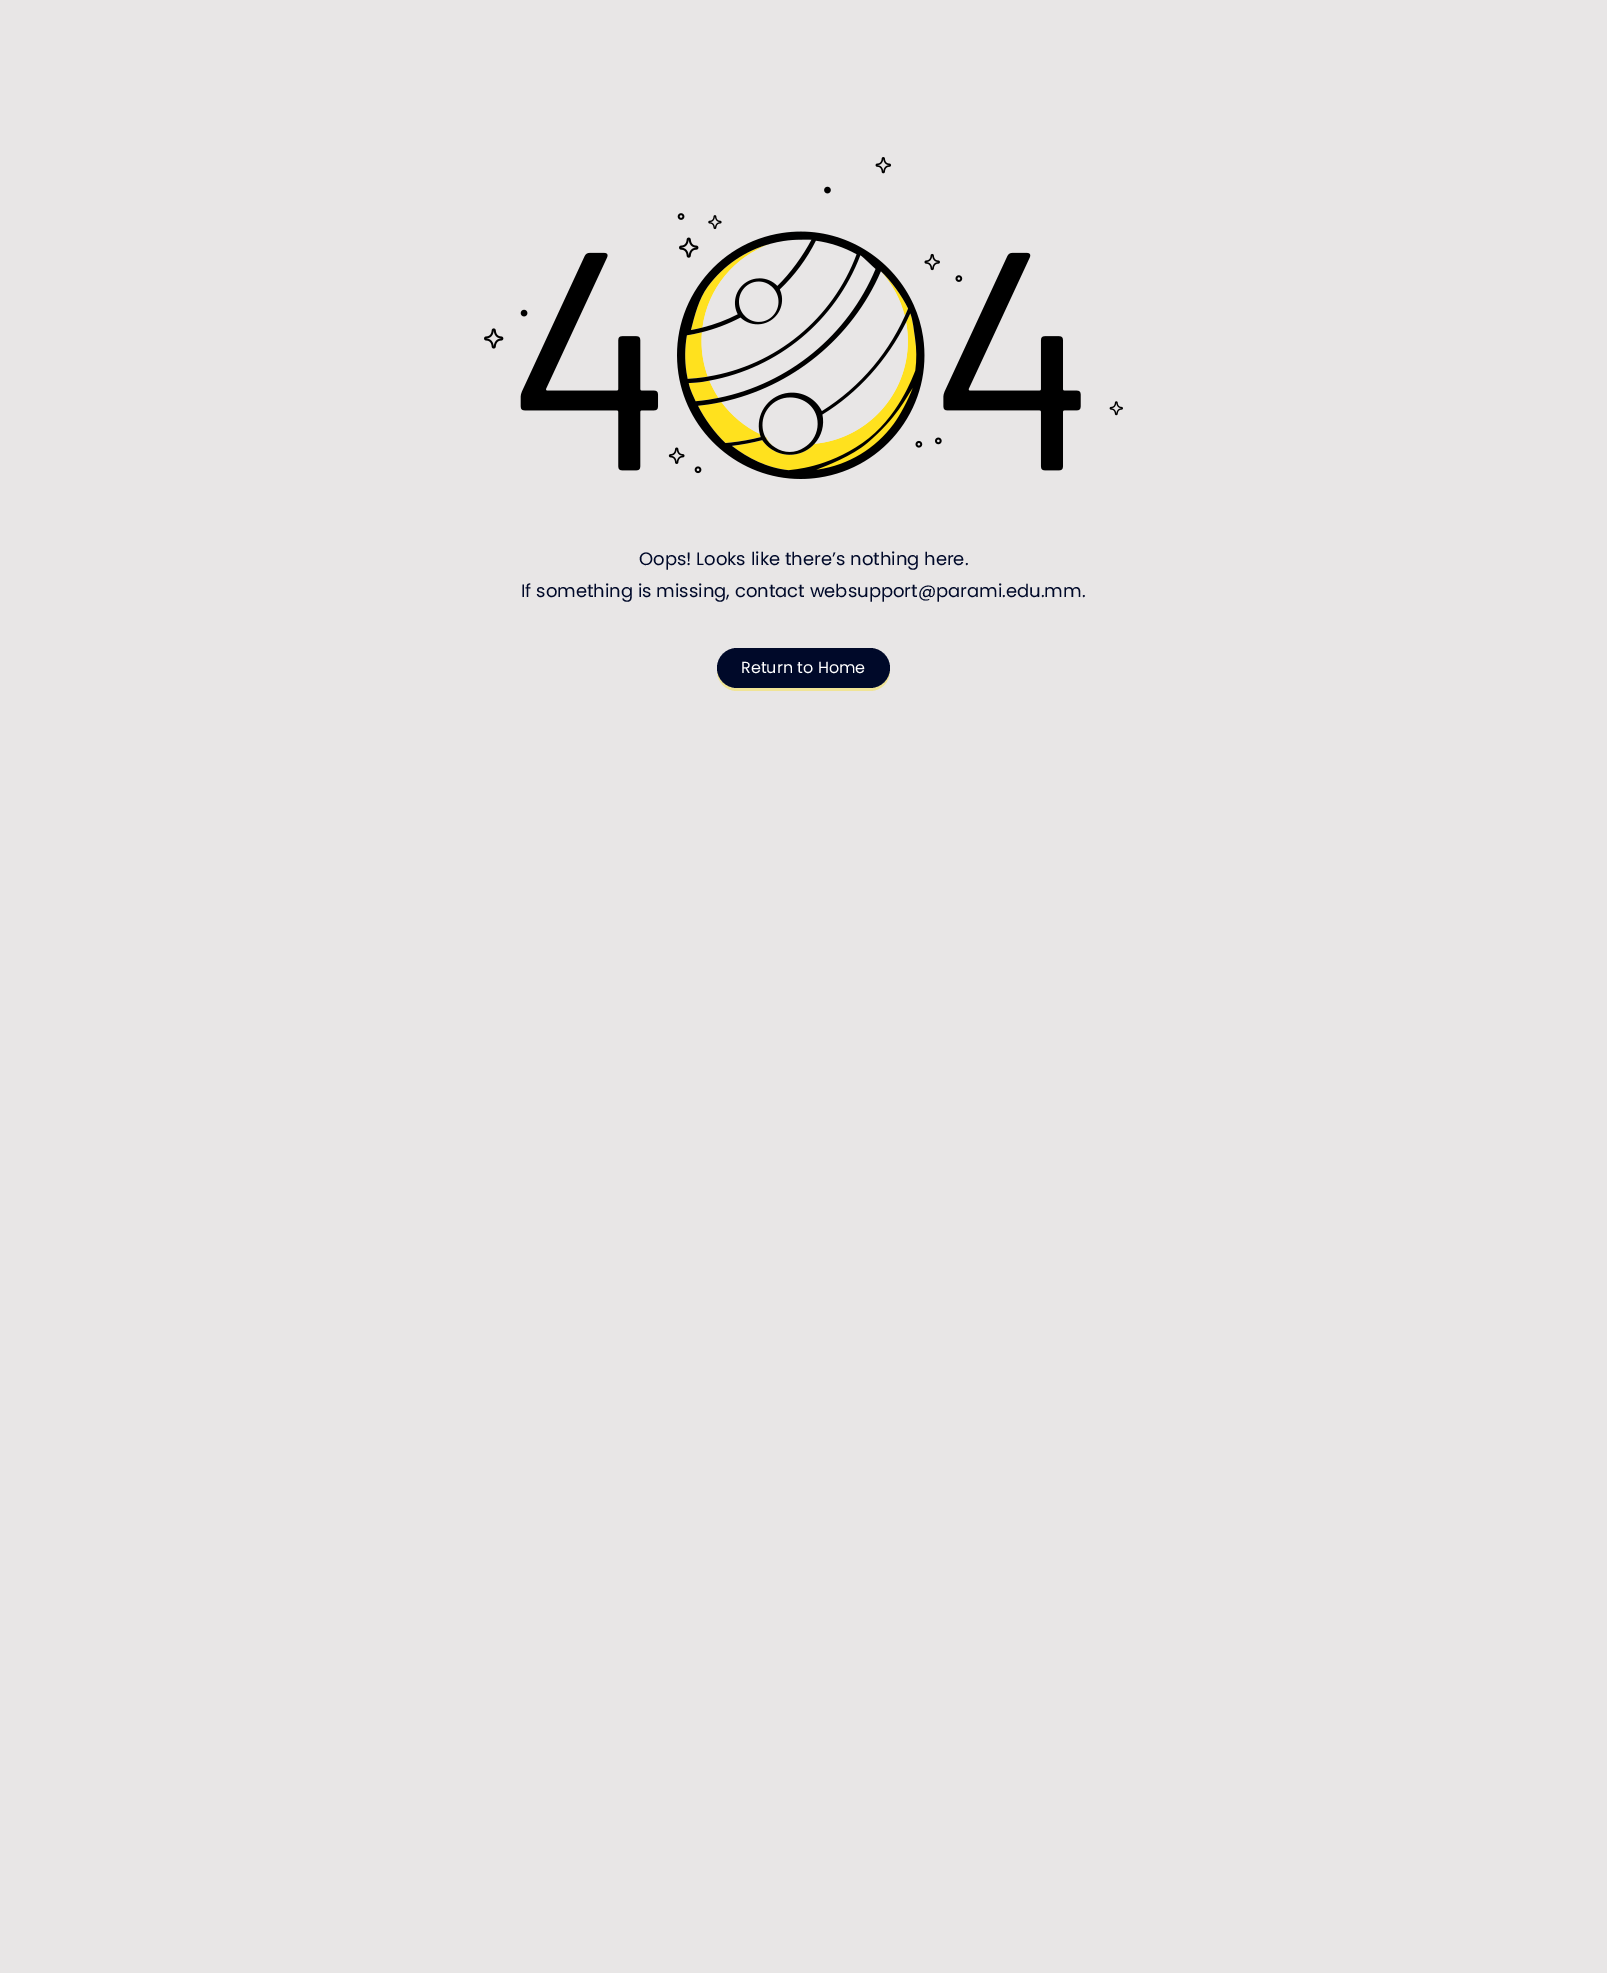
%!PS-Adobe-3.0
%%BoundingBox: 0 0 1607 1973
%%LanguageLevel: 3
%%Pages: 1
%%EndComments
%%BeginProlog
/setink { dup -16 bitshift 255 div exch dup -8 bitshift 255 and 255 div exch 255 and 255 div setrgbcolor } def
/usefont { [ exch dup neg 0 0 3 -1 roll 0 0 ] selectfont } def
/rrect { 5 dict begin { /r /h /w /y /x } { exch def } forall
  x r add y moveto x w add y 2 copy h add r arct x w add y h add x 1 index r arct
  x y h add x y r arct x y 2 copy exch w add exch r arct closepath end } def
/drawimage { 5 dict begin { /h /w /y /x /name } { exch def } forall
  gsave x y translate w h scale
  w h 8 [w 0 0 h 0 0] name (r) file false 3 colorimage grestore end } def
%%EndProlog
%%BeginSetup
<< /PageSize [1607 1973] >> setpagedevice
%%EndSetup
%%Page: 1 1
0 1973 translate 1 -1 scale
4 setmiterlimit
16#E8E6E6 setink
0 0 1607 1973 rectfill
(img1.raw) 484 157 639 322 drawimage
/Poppins-Regular 18 usefont
16#000929 setink
639 565 moveto (Oops! Looks like there’s nothing here.) show
521 597 moveto (If something is missing, contact websupport@parami.edu.mm.) show
16#F0E496 setink
717 670 moveto 717 671 lineto 717 682 726 691 737 691 curveto 870 691 lineto 881 691 890 682 890 671 curveto 890 670 lineto 889 680 881 688 870 688 curveto 737 688 lineto 726 688 718 680 717 670 curveto closepath fill
16#000929 setink
717 648 173 40 20 rrect fill
/Poppins-Regular 16 usefont
16#FFFFFF setink
741 673 moveto (Return to Home) show
showpage
%%EOF
